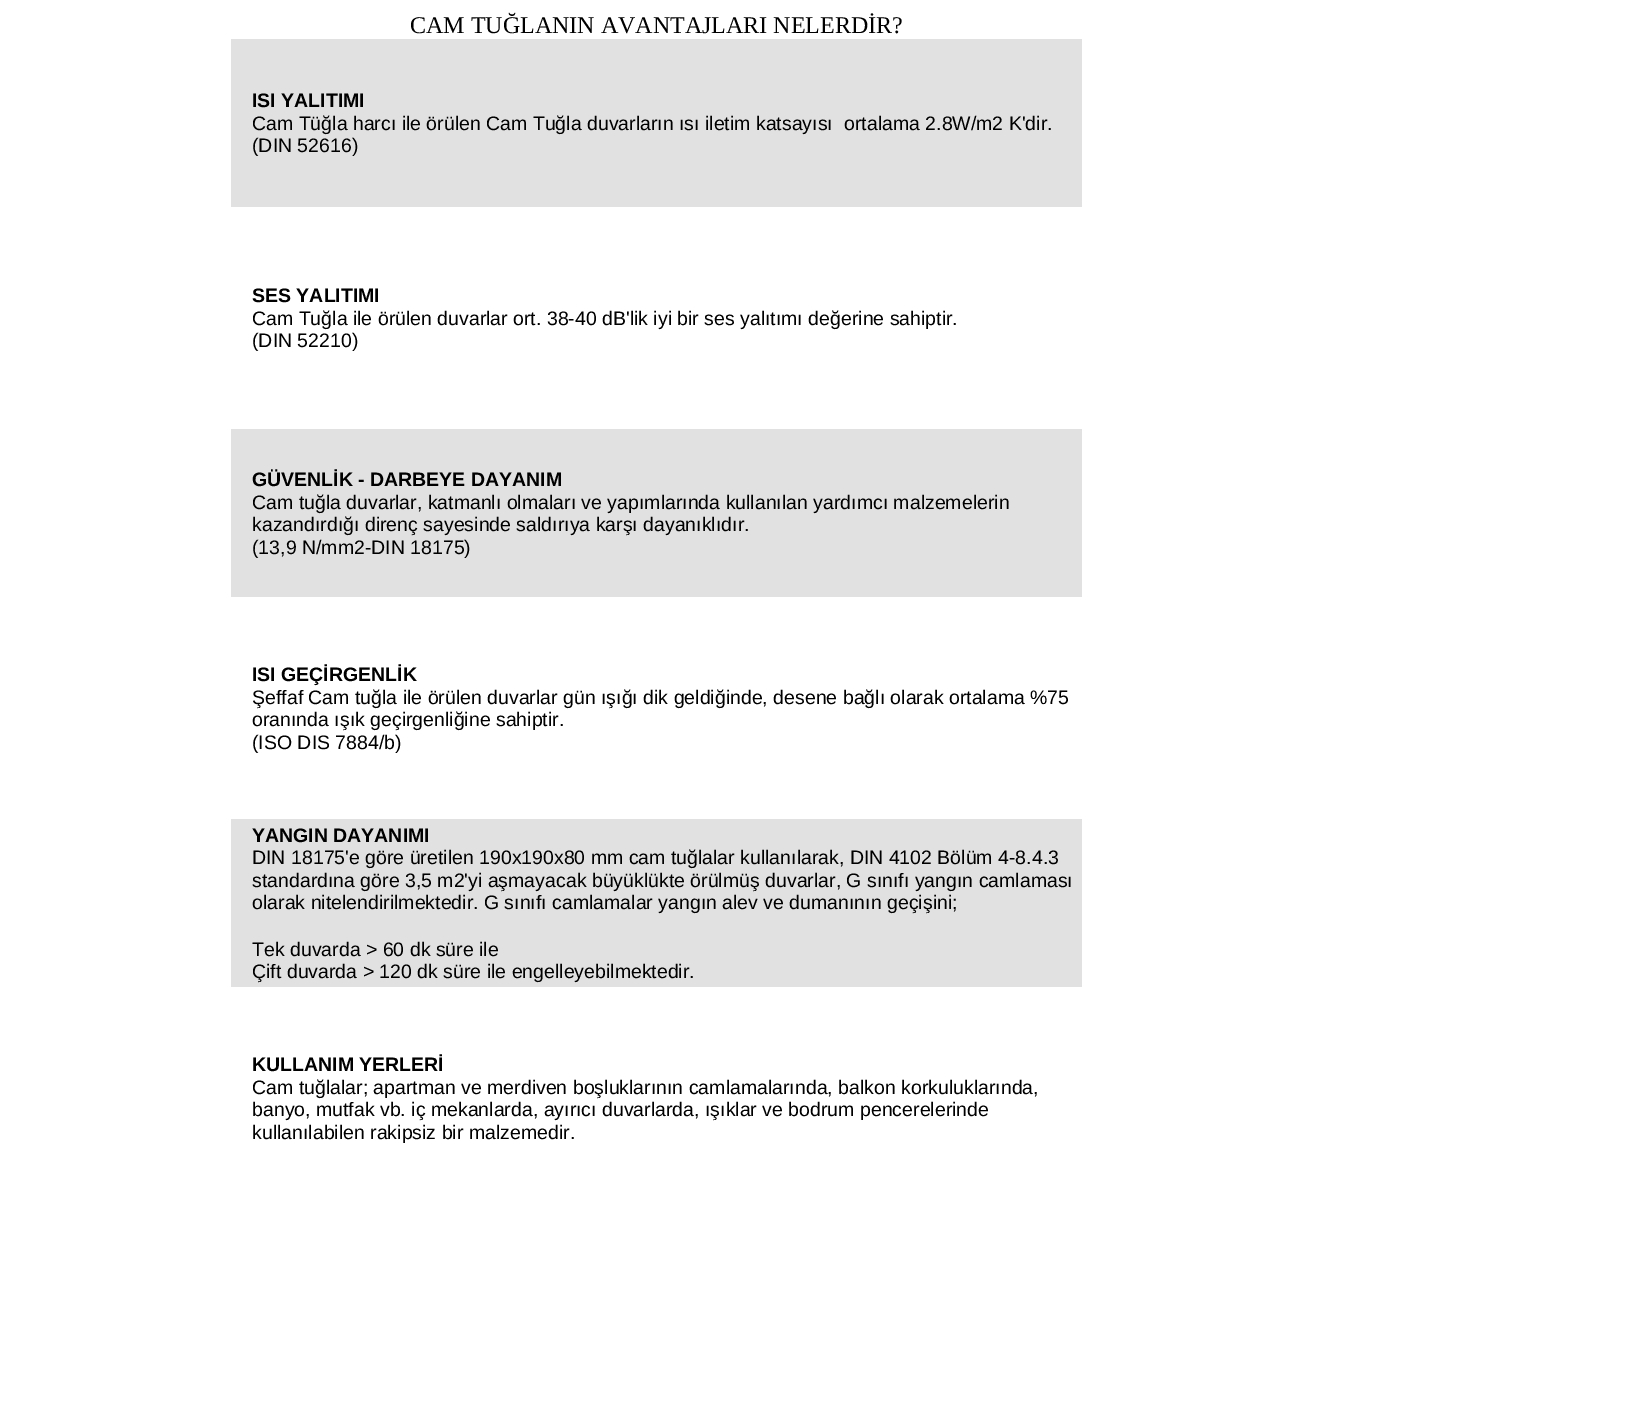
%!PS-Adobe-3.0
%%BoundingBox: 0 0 1625 1413
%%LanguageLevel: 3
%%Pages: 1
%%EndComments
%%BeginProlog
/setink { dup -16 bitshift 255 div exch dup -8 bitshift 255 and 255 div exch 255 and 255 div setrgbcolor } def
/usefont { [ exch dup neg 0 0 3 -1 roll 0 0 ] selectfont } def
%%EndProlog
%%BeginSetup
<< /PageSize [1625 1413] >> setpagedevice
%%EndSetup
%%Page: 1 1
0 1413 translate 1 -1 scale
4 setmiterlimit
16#FFFFFF setink
0 0 1625 1413 rectfill
/LiberationSerif-Regular 24 usefont
16#000000 setink
410 33 moveto (CAM TUĞLANIN AVANTAJLARI NELERDİR?) show
16#E1E1E1 setink
231 39 851 168 rectfill
/LiberationSans-Bold 19.5 usefont
16#000000 setink
252 107 moveto (ISI YALITIMI) show
/LiberationSans-Regular 19.5 usefont
[
    [(Cam Tüğla harcı ile örülen Cam Tuğla duvarların ısı iletim katsayısı) 252 130]
    [(ortalama 2.8W/m2 K'dir.) 844 130]
    [(\(DIN 52616\)) 252 152]
] { aload pop moveto show } forall
/LiberationSans-Bold 19.5 usefont
252 302 moveto (SES YALITIMI) show
/LiberationSans-Regular 19.5 usefont
252 325 moveto (Cam Tuğla ile örülen duvarlar ort. 38-40 dB'lik iyi bir ses yalıtımı değerine sahiptir.) show
252 347 moveto (\(DIN 52210\)) show
16#E1E1E1 setink
231 429 851 168 rectfill
/LiberationSans-Bold 19.5 usefont
16#000000 setink
252 486 moveto (GÜVENLİK - DARBEYE DAYANIM) show
/LiberationSans-Regular 19.5 usefont
[
    [(Cam tuğla duvarlar, katmanlı olmaları ve yapımlarında kullanılan yardımcı malzemelerin) 252 509]
    [(kazandırdığı direnç sayesinde saldırıya karşı dayanıklıdır.) 252 531]
    [(\(13,9 N/mm2-DIN 18175\)) 252 554]
] { aload pop moveto show } forall
/LiberationSans-Bold 19.5 usefont
252 681 moveto (ISI GEÇİRGENLİK) show
/LiberationSans-Regular 19.5 usefont
[
    [(Şeffaf Cam tuğla ile örülen duvarlar gün ışığı dik geldiğinde, desene bağlı olarak ortalama %75) 252 704]
    [(oranında ışık geçirgenliğine sahiptir.) 252 726]
    [(\(ISO DIS 7884/b\)) 252 749]
] { aload pop moveto show } forall
16#E1E1E1 setink
231 819 851 168 rectfill
/LiberationSans-Bold 19.5 usefont
16#000000 setink
252 842 moveto (YANGIN DAYANIMI) show
/LiberationSans-Regular 19.5 usefont
[
    [(DIN 18175'e göre üretilen 190x190x80 mm cam tuğlalar kullanılarak, DIN 4102 Bölüm 4-8.4.3) 252 864]
    [(standardına göre 3,5 m2'yi aşmayacak büyüklükte örülmüş duvarlar, G sınıfı yangın camlaması) 252 887]
    [(olarak nitelendirilmektedir. G sınıfı camlamalar yangın alev ve dumanının geçişini;) 252 909]
    [(Tek duvarda > 60 dk süre ile) 252 956]
    [(Çift duvarda > 120 dk süre ile engelleyebilmektedir.) 252 978]
] { aload pop moveto show } forall
/LiberationSans-Bold 19.5 usefont
252 1071 moveto (KULLANIM YERLERİ) show
/LiberationSans-Regular 19.5 usefont
[
    [(Cam tuğlalar; apartman ve merdiven boşluklarının camlamalarında, balkon korkuluklarında,) 252 1094]
    [(banyo, mutfak vb. iç mekanlarda, ayırıcı duvarlarda, ışıklar ve bodrum pencerelerinde) 252 1116]
    [(kullanılabilen rakipsiz bir malzemedir.) 252 1139]
] { aload pop moveto show } forall
showpage
%%EOF
